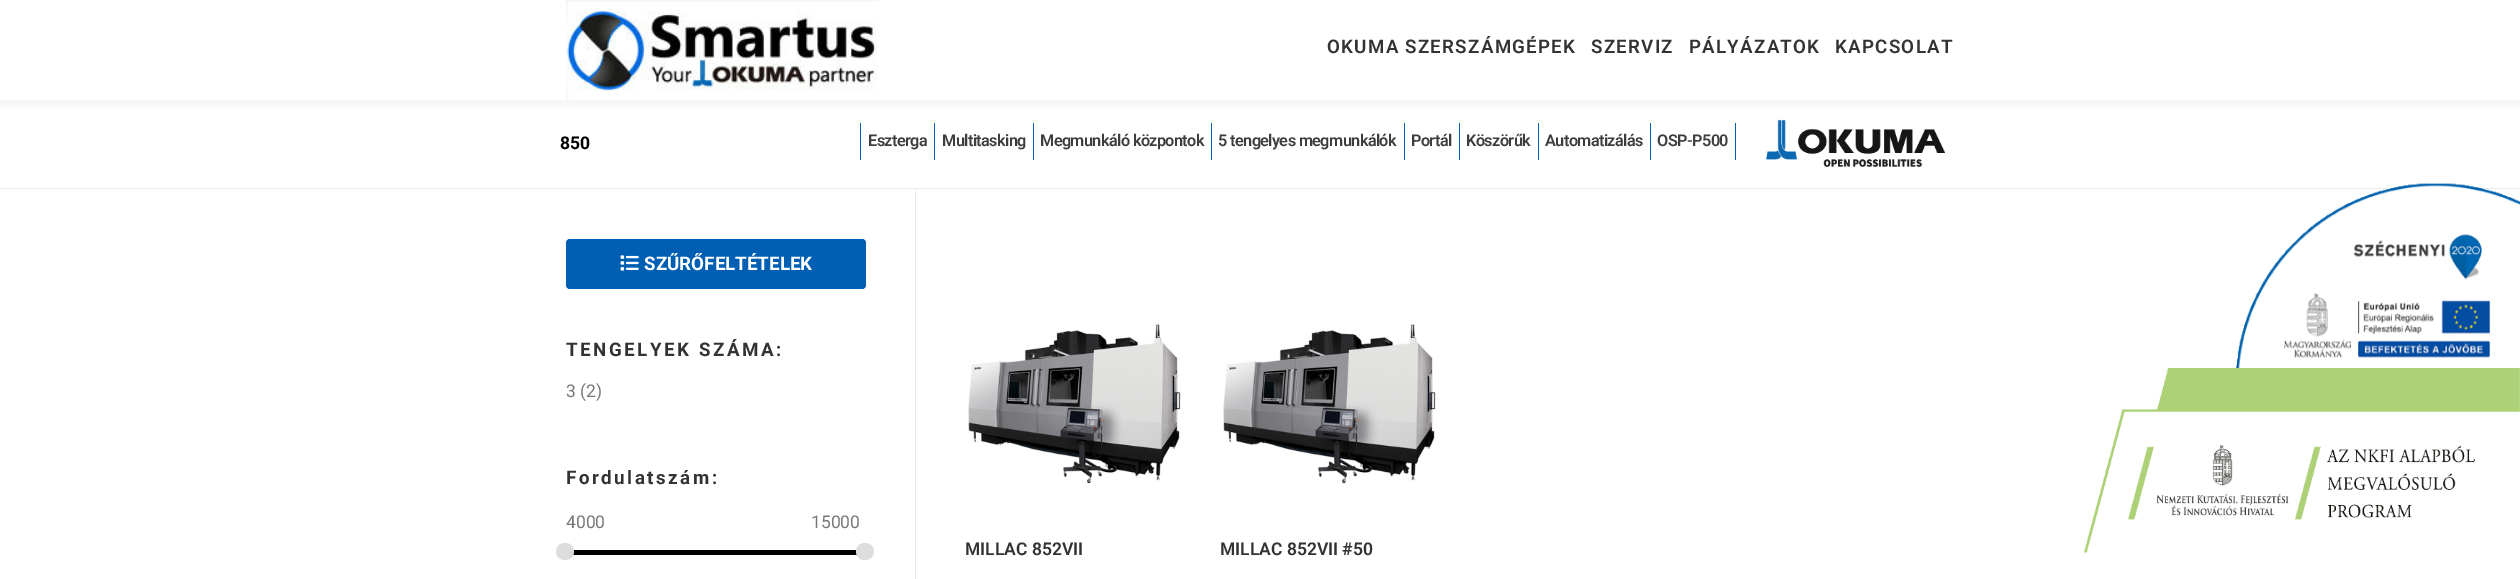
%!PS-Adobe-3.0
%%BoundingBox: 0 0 2520 579
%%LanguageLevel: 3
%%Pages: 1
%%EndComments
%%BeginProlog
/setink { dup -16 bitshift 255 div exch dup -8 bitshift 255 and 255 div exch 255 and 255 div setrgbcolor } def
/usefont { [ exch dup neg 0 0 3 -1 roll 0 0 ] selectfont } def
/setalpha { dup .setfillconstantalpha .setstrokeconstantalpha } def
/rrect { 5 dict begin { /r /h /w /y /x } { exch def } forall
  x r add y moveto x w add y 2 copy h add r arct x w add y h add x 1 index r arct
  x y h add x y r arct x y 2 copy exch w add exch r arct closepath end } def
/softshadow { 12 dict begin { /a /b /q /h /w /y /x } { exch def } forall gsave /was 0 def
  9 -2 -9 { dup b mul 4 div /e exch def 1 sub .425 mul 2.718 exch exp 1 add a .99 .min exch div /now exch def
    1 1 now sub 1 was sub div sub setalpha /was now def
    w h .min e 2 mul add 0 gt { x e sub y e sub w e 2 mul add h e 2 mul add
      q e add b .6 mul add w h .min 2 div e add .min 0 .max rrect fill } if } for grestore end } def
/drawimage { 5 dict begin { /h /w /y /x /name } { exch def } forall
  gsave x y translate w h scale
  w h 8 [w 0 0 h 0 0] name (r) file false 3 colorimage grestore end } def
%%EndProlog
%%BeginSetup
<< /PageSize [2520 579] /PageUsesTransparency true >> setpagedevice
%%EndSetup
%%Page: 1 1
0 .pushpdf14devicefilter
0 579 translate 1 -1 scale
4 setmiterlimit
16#FFFFFF setink
0 0 2520 579 rectfill
[
    [934 123 1 37 16#005EB3]
    [860 123 1 37 16#005EB3]
    [1033 123 1 37 16#005EB3]
    [1211 123 1 37 16#005EB3]
    [1404 123 1 37 16#005EB3]
    [1459 123 1 37 16#005EB3]
    [1538 123 1 37 16#005EB3]
    [1650 123 1 37 16#005EB3]
    [1735 123 1 37 16#005EB3]
] { aload pop setink rectfill } forall
(img2.raw) 1766 119 179 48 drawimage
gsave
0 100 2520 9 rectclip
16#323232 setink
0 6 2520 100 0 6 0.06 softshadow
grestore
(img1.raw) 566 0 313 100 drawimage
/Roboto-SemiBold 18.75 usefont
16#333333 setink
1327 53 moveto 1.25 0 (OKUMA SZERSZÁMGÉPEK) ashow
1591 53 moveto 1.25 0 (SZERVIZ) ashow
1689 53 moveto 1.25 0 (PÁLYÁZATOK) ashow
1835 53 moveto 1.25 0 (KAPCSOLAT) ashow
/Roboto-Bold 17.5 usefont
16#000000 setink
560 149 moveto (850) show
/Roboto-SemiBold 16.25 usefont
16#3D3D3D setink
868 146 moveto -0.6 0 (Eszterga) ashow
942 146 moveto -0.6 0 (Multitasking) ashow
1040 146 moveto -0.6 0 (Megmunkáló központok) ashow
1218 146 moveto -0.6 0 (5 tengelyes megmunkálók) ashow
1411 146 moveto -0.6 0 (Portál) ashow
1466 146 moveto -0.6 0 (Köszörűk) ashow
1545 146 moveto -0.6 0 (Automatizálás) ashow
1657 146 moveto -0.6 0 (OSP-P500) ashow
16#E9E9E9 setink
0 188 2520 1 rectfill
16#005EB3 setink
566 239 300 50 4 rrect fill
(img3.raw) 620 255 19 16 drawimage
/Roboto-Bold 18.75 usefont
16#FFFFFF setink
644 270 moveto (SZŰRŐFELTÉTELEK) show
16#333333 setink
566 356 moveto 2.5 0 (TENGELYEK SZÁMA:) ashow
/Roboto-Regular 17.5 usefont
16#777777 setink
566 397 moveto (3 \(2\)) show
/Roboto-Bold 18.75 usefont
16#333333 setink
566 484 moveto 2.5 0 (Fordulatszám:) ashow
/Roboto-Regular 17.5 usefont
16#777777 setink
566 528 moveto (4000) show
811 528 moveto (15000) show
16#000000 setink
566 550 291 5 rectfill
16#DDDDDD setink
556 543 18 17 8.5 rrect fill
856 543 18 17 8.5 rrect fill
16#E9E9E9 setink
915 189 1 390 rectfill
(img4.raw) 968 324 213 160 drawimage
/Roboto-SemiBold 17.5 usefont
16#333333 setink
965 555 moveto (MILLAC 852VII) show
(img4.raw) 1223 324 213 160 drawimage
1220 555 moveto (MILLAC 852VII #50) show
(img5.raw) 2236 183 284 200 drawimage
(img6.raw) 2084 368 436 185 drawimage
.poppdf14devicefilter showpage
%%EOF
